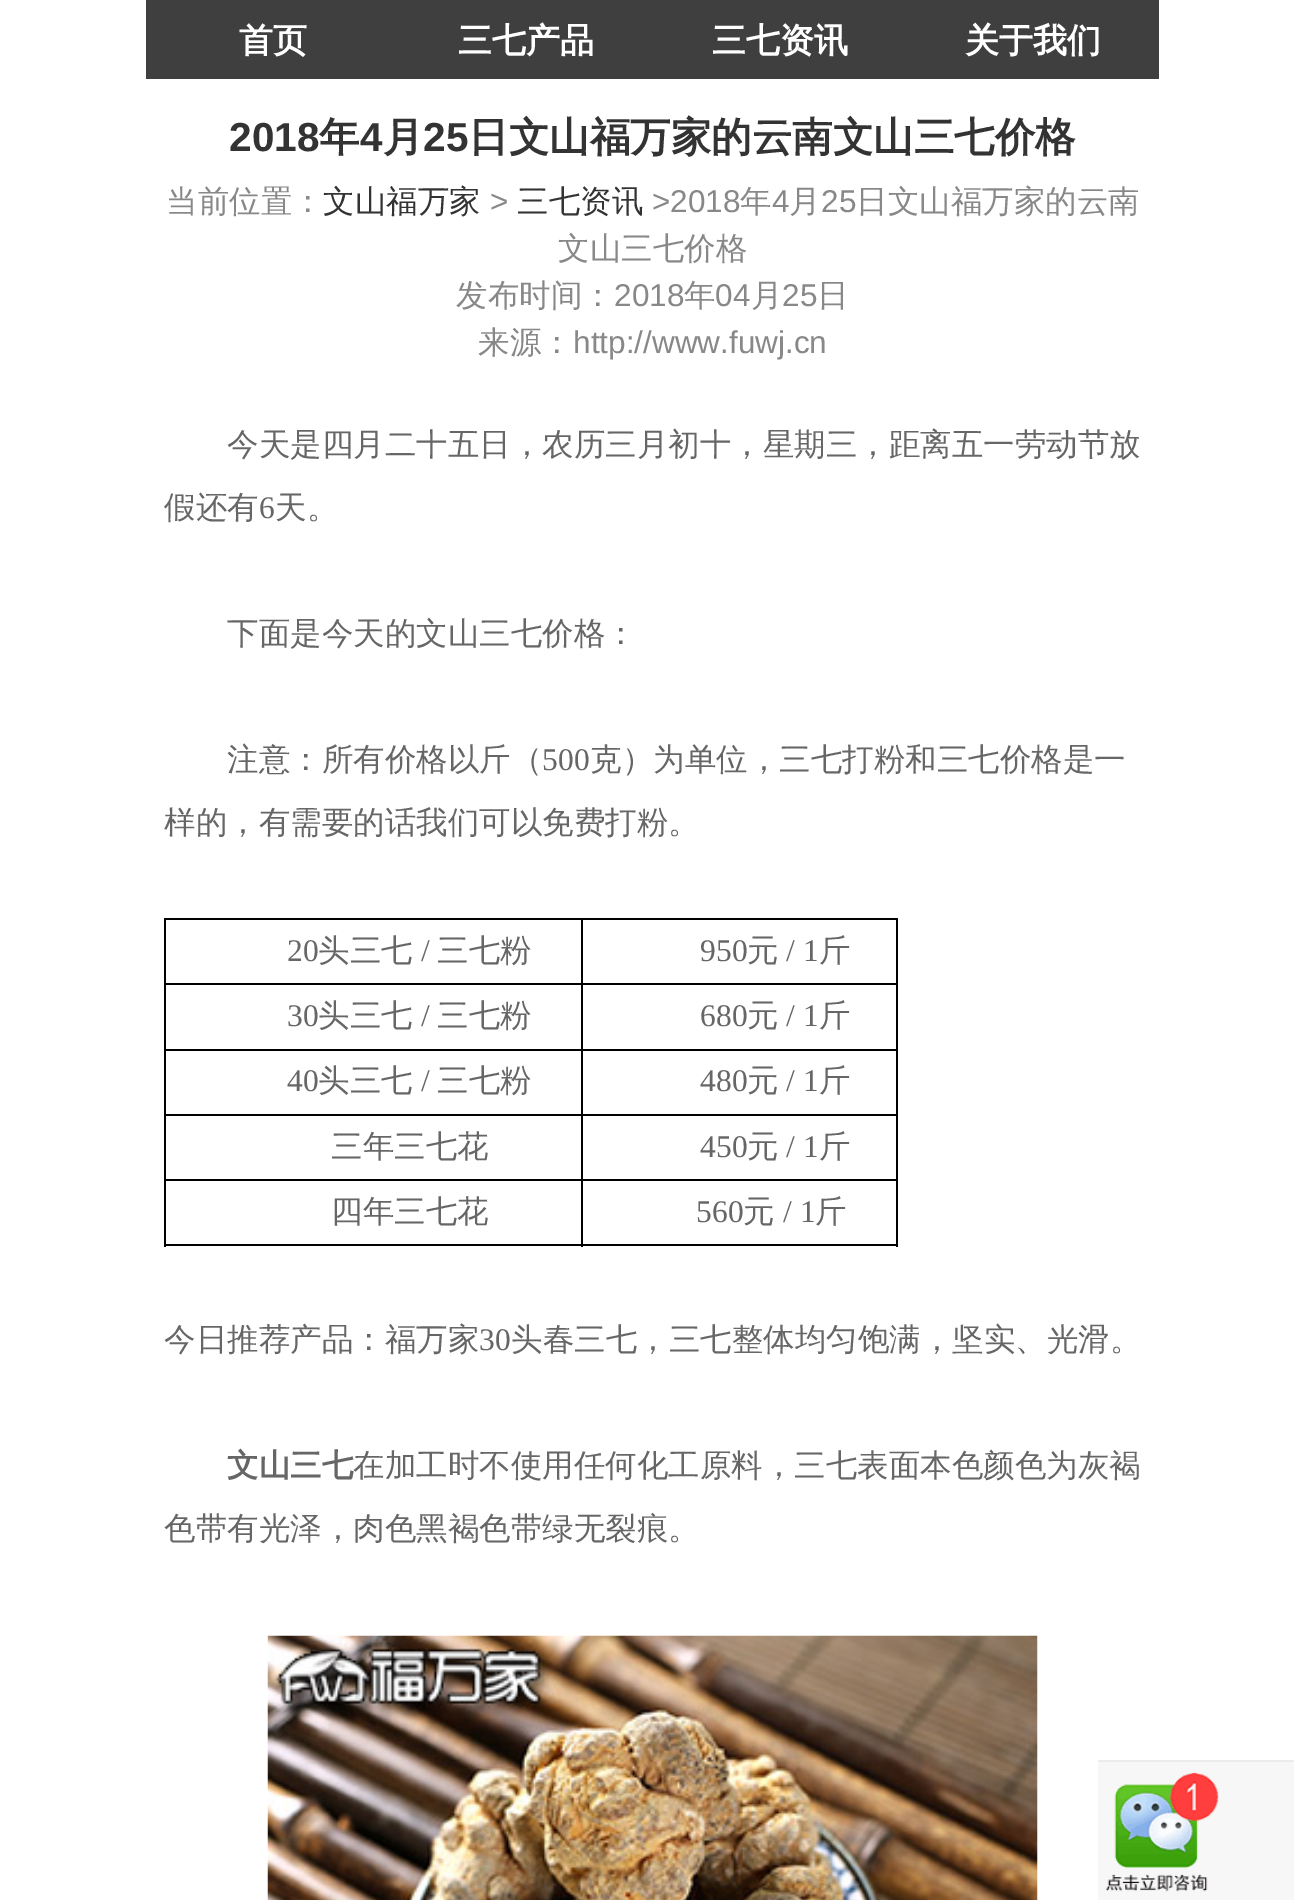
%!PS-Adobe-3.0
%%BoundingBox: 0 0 1303 1900
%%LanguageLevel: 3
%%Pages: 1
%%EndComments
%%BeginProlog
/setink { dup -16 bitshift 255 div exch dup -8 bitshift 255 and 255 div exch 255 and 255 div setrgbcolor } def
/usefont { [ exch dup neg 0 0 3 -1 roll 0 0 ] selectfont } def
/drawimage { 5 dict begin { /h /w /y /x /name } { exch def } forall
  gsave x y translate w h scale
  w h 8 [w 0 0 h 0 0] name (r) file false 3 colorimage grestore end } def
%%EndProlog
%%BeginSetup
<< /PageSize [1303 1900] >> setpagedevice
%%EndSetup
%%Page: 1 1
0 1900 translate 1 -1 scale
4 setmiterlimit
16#FFFFFF setink
0 0 1303 1900 rectfill
16#3F3F40 setink
146 0 1013 79 rectfill
/WenQuanYiZenHei-Bold 34 usefont
16#FFFFFF setink
[
    [(首页) 239 52]
    [(三七产品) 458 52]
    [(三七资讯) 712 52]
    [(关于我们) 965 52]
] { aload pop moveto show } forall
/LiberationSans-Bold 40.5 usefont
16#333333 setink
229 151 moveto (2018) show
/WenQuanYiZenHei-Bold 40.5 usefont
319 151 moveto (年) show
/LiberationSans-Bold 40.5 usefont
360 151 moveto (4) show
/WenQuanYiZenHei-Bold 40.5 usefont
383 151 moveto (月) show
/LiberationSans-Bold 40.5 usefont
423 151 moveto (25) show
/WenQuanYiZenHei-Bold 40.5 usefont
468 151 moveto (日文山福万家的云南文山三七价格) show
/WenQuanYiZenHei-Medium 31.5 usefont
16#888888 setink
166 212 moveto (当前位置：) show
16#333333 setink
323 212 moveto (文山福万家) show
/LiberationSans-Regular 31.5 usefont
16#888888 setink
490 212 moveto (>) show
/WenQuanYiZenHei-Medium 31.5 usefont
16#333333 setink
517 212 moveto (三七资讯) show
/LiberationSans-Regular 31.5 usefont
16#888888 setink
652 212 moveto (>2018) show
/WenQuanYiZenHei-Medium 31.5 usefont
740 212 moveto (年) show
/LiberationSans-Regular 31.5 usefont
772 212 moveto (4) show
/WenQuanYiZenHei-Medium 31.5 usefont
789 212 moveto (月) show
/LiberationSans-Regular 31.5 usefont
821 212 moveto (25) show
/WenQuanYiZenHei-Medium 31.5 usefont
[
    [(日文山福万家的云南) 856 212]
    [(文山三七价格) 558 259]
    [(发布时间：) 456 306]
] { aload pop moveto show } forall
/LiberationSans-Regular 31.5 usefont
614 306 moveto (2018) show
/WenQuanYiZenHei-Medium 31.5 usefont
684 306 moveto (年) show
/LiberationSans-Regular 31.5 usefont
715 306 moveto (04) show
/WenQuanYiZenHei-Medium 31.5 usefont
751 306 moveto (月) show
/LiberationSans-Regular 31.5 usefont
782 306 moveto (25) show
/WenQuanYiZenHei-Medium 31.5 usefont
817 306 moveto (日) show
478 353 moveto (来源：) show
/LiberationSans-Regular 31.5 usefont
573 353 moveto (http://www.fuwj.cn) show
/WenQuanYiZenHei-Medium 31.5 usefont
16#666666 setink
227 455 moveto (今天是四月二十五日，农历三月初十，星期三，距离五一劳动节放) show
164 518 moveto (假还有) show
/LiberationSerif-Regular 31.5 usefont
259 518 moveto (6) show
/WenQuanYiZenHei-Medium 31.5 usefont
[
    [(天。) 275 518]
    [(下面是今天的文山三七价格：) 227 644]
    [(注意：所有价格以斤（) 227 770]
] { aload pop moveto show } forall
/LiberationSerif-Regular 31.5 usefont
542 770 moveto (500) show
/WenQuanYiZenHei-Medium 31.5 usefont
590 770 moveto (克）为单位，三七打粉和三七价格是一) show
164 833 moveto (样的，有需要的话我们可以免费打粉。) show
[
    [164 918 734 2 16#000000]
    [896 983 2 264 16#000000]
    [896 918 2 68 16#000000]
    [581 1244 317 2 16#000000]
    [581 1179 2 68 16#000000]
    [581 1179 317 2 16#000000]
    [581 1114 2 67 16#000000]
    [581 1114 317 2 16#000000]
    [581 1049 2 67 16#000000]
    [581 1049 317 2 16#000000]
    [581 983 2 68 16#000000]
    [581 983 317 2 16#000000]
    [581 918 2 68 16#000000]
    [164 1244 419 2 16#000000]
    [164 1179 2 68 16#000000]
    [164 1179 419 2 16#000000]
    [164 1114 2 67 16#000000]
    [164 1114 419 2 16#000000]
    [164 1049 2 67 16#000000]
    [164 1049 419 2 16#000000]
    [164 983 2 68 16#000000]
    [164 983 419 2 16#000000]
    [164 918 2 68 16#000000]
] { aload pop setink rectfill } forall
/LiberationSerif-Regular 31.5 usefont
16#666666 setink
287 961 moveto (20) show
/WenQuanYiZenHei-Medium 31.5 usefont
318 961 moveto (头三七) show
/LiberationSerif-Regular 31.5 usefont
421 961 moveto (/) show
/WenQuanYiZenHei-Medium 31.5 usefont
437 961 moveto (三七粉) show
/LiberationSerif-Regular 31.5 usefont
700 961 moveto (950) show
/WenQuanYiZenHei-Medium 31.5 usefont
747 961 moveto (元) show
/LiberationSerif-Regular 31.5 usefont
786 961 moveto (/ 1) show
/WenQuanYiZenHei-Medium 31.5 usefont
819 961 moveto (斤) show
/LiberationSerif-Regular 31.5 usefont
287 1026 moveto (30) show
/WenQuanYiZenHei-Medium 31.5 usefont
318 1026 moveto (头三七) show
/LiberationSerif-Regular 31.5 usefont
421 1026 moveto (/) show
/WenQuanYiZenHei-Medium 31.5 usefont
437 1026 moveto (三七粉) show
/LiberationSerif-Regular 31.5 usefont
700 1026 moveto (680) show
/WenQuanYiZenHei-Medium 31.5 usefont
747 1026 moveto (元) show
/LiberationSerif-Regular 31.5 usefont
786 1026 moveto (/ 1) show
/WenQuanYiZenHei-Medium 31.5 usefont
819 1026 moveto (斤) show
/LiberationSerif-Regular 31.5 usefont
287 1091 moveto (40) show
/WenQuanYiZenHei-Medium 31.5 usefont
318 1091 moveto (头三七) show
/LiberationSerif-Regular 31.5 usefont
421 1091 moveto (/) show
/WenQuanYiZenHei-Medium 31.5 usefont
437 1091 moveto (三七粉) show
/LiberationSerif-Regular 31.5 usefont
700 1091 moveto (480) show
/WenQuanYiZenHei-Medium 31.5 usefont
747 1091 moveto (元) show
/LiberationSerif-Regular 31.5 usefont
786 1091 moveto (/ 1) show
/WenQuanYiZenHei-Medium 31.5 usefont
819 1091 moveto (斤) show
331 1157 moveto (三年三七花) show
/LiberationSerif-Regular 31.5 usefont
700 1157 moveto (450) show
/WenQuanYiZenHei-Medium 31.5 usefont
747 1157 moveto (元) show
/LiberationSerif-Regular 31.5 usefont
786 1157 moveto (/ 1) show
/WenQuanYiZenHei-Medium 31.5 usefont
819 1157 moveto (斤) show
331 1222 moveto (四年三七花) show
/LiberationSerif-Regular 31.5 usefont
696 1222 moveto (560) show
/WenQuanYiZenHei-Medium 31.5 usefont
743 1222 moveto (元) show
/LiberationSerif-Regular 31.5 usefont
783 1222 moveto (/ 1) show
/WenQuanYiZenHei-Medium 31.5 usefont
815 1222 moveto (斤) show
164 1350 moveto (今日推荐产品：福万家) show
/LiberationSerif-Regular 31.5 usefont
479 1350 moveto (30) show
/WenQuanYiZenHei-Medium 31.5 usefont
511 1350 moveto (头春三七，三七整体均匀饱满，坚实、光滑。) show
/WenQuanYiZenHei-Bold 31.5 usefont
227 1476 moveto (文山三七) show
/WenQuanYiZenHei-Medium 31.5 usefont
353 1476 moveto (在加工时不使用任何化工原料，三七表面本色颜色为灰褐) show
164 1539 moveto (色带有光泽，肉色黑褐色带绿无裂痕。) show
(img1.raw) 267 1635 771 265 drawimage
16#F7F7F7 setink
1098 1762 196 138 rectfill
16#ECECEC setink
1098 1760 196 2 rectfill
(img2.raw) 1106 1772 113 120 drawimage
showpage
%%EOF
